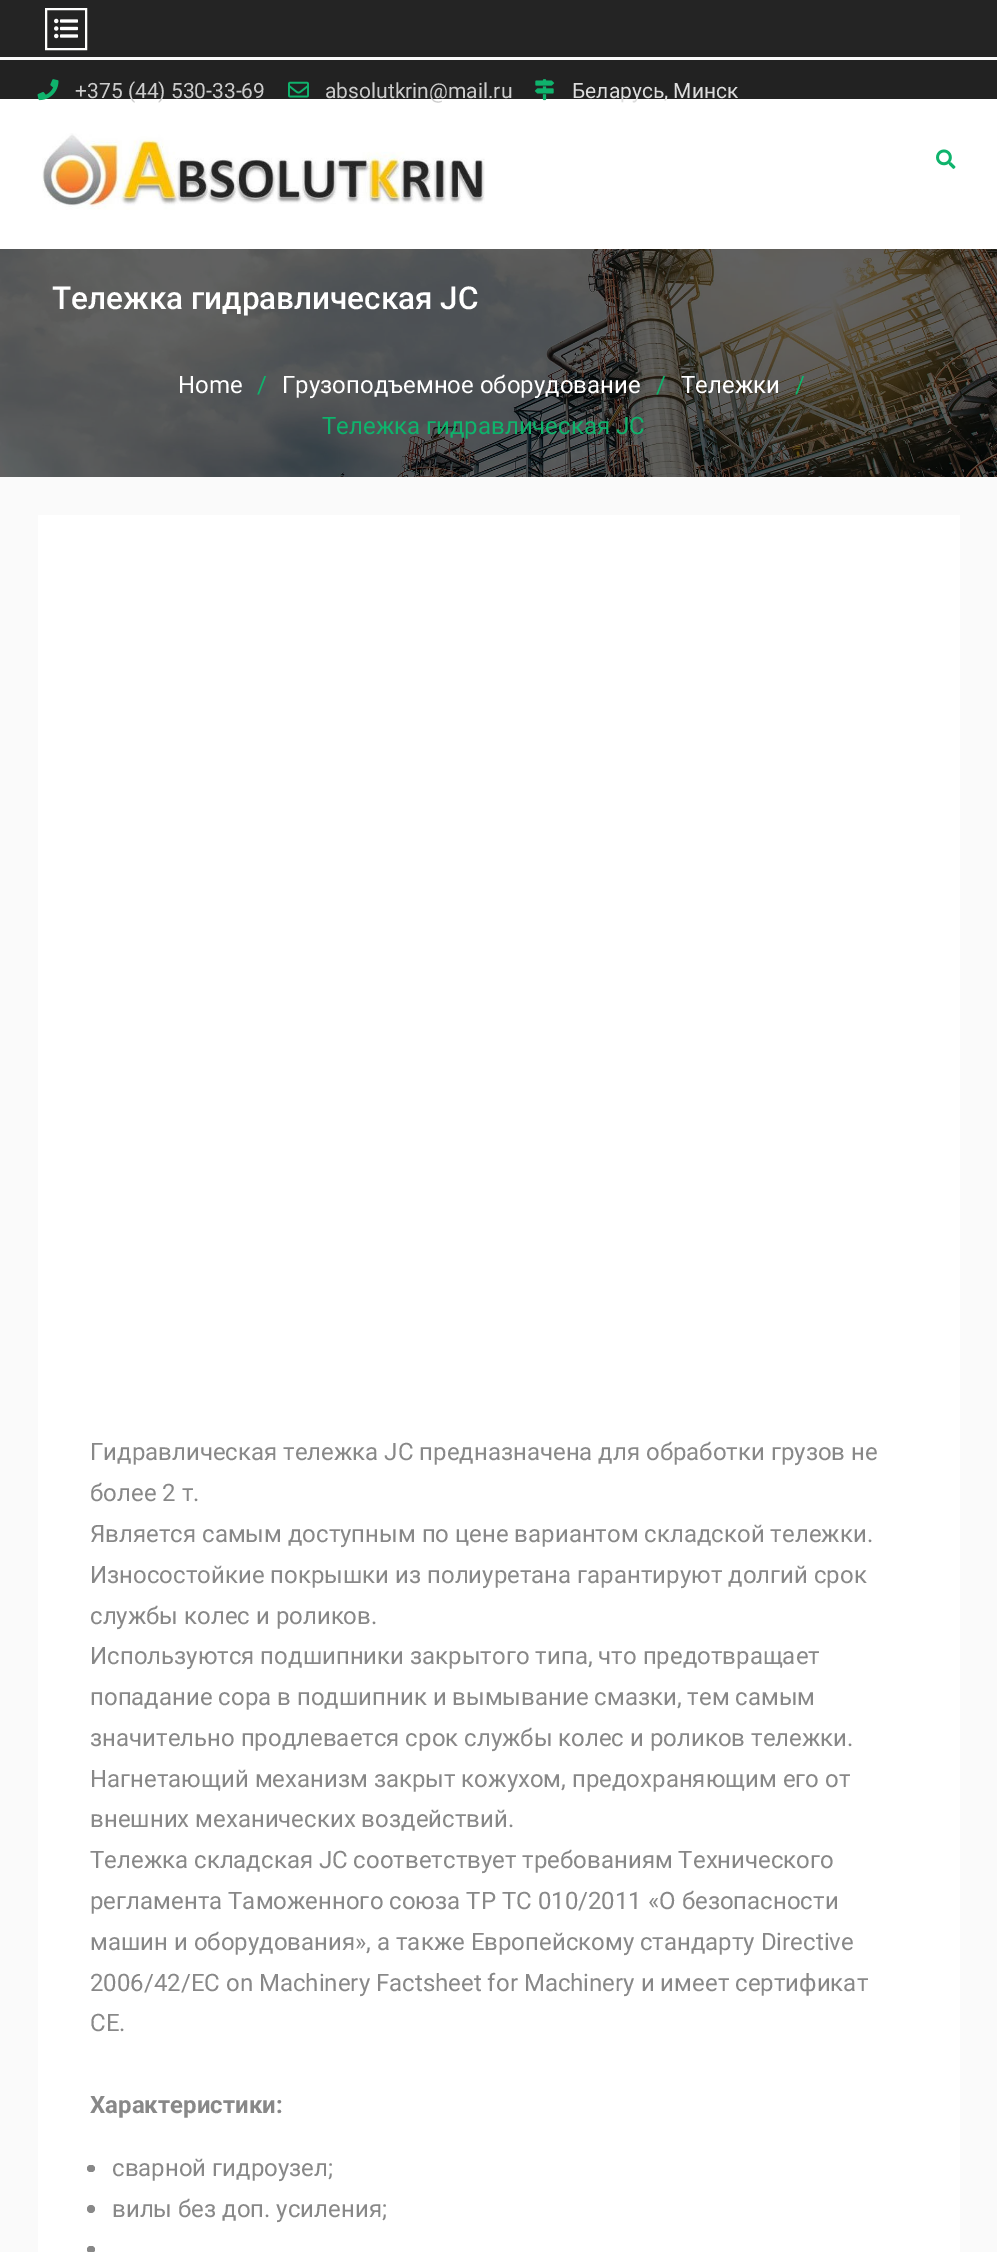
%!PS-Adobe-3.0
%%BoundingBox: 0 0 997 2252
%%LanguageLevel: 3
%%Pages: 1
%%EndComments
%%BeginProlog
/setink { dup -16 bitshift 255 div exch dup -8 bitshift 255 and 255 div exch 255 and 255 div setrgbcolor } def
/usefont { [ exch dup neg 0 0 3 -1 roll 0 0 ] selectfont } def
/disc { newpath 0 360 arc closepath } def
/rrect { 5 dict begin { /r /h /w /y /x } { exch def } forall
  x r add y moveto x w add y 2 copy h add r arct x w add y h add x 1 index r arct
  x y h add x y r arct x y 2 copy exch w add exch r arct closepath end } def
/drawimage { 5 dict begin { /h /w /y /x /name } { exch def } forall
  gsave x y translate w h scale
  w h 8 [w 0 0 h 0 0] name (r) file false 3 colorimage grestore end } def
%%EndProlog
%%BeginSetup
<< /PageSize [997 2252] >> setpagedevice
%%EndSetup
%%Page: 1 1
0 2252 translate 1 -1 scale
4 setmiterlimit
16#FAFAFA setink
0 0 997 2252 rectfill
16#242424 setink
0 0 997 57 rectfill
16#FFFFFE setink
2 setlinewidth
46 9 40 40 rectstroke
(img1.raw) 54 18 24 21 drawimage
16#222222 setink
0 60 997 39 rectfill
16#FFFFFF setink
0 99 997 150 rectfill
(img2.raw) 37 79 22 22 drawimage
/Roboto-Regular 21 usefont
16#CCCCCC setink
75 98 moveto (+375 \(44\) 530-33-69) show
(img3.raw) 288 81 21 17 drawimage
325 98 moveto (absolutkrin@mail.ru) show
(img4.raw) 534 79 21 22 drawimage
16#DDDDDD setink
572 98 moveto (Беларусь, Минск) show
(img5.raw) 42 133 443 77 drawimage
(img6.raw) 936 149 20 20 drawimage
(img7.raw) 0 249 997 228 drawimage
/Roboto-Medium 31.5 usefont
16#FFFFFF setink
52 309 moveto (Тележка гидравлическая JC) show
/Roboto-Regular 24 usefont
178 393 moveto (Home) show
16#0FB36C setink
257 393 moveto (/) show
16#FFFFFF setink
282 393 moveto (Грузоподъемное оборудование) show
16#0FB36C setink
656 393 moveto (/) show
16#FFFFFF setink
681 393 moveto (Тележки) show
16#0FB36C setink
795 393 moveto (/) show
322 434 moveto (Тележка гидравлическая JC) show
16#FFFFFF setink
38 515 922 1737 rectfill
16#888888 setink
[
    [(Гидравлическая тележка JC предназначена для обработки грузов не) 90 1460]
    [(более 2 т.) 90 1501]
    [(Является самым доступным по цене вариантом складской тележки.) 90 1542]
    [(Износостойкие покрышки из полиуретана гарантируют долгий срок) 90 1583]
    [(службы колес и роликов.) 90 1624]
    [(Используются подшипники закрытого типа, что предотвращает) 90 1664]
    [(попадание сора в подшипник и вымывание смазки, тем самым) 90 1705]
    [(значительно продлевается срок службы колес и роликов тележки.) 90 1746]
    [(Нагнетающий механизм закрыт кожухом, предохраняющим его от) 90 1787]
    [(внешних механических воздействий.) 90 1827]
    [(Тележка складская JC соответствует требованиям Технического) 90 1868]
    [(регламента Таможенного союза ТР ТС 010/2011 «О безопасности) 90 1909]
    [(машин и оборудования», а также Европейскому стандарту Directive) 90 1950]
    [(2006/42/EC on Machinery Factsheet for Machinery и имеет сертификат) 90 1991]
    [(CE.) 90 2031]
] { aload pop moveto show } forall
/Roboto-Bold 24 usefont
90 2113 moveto (Характеристики:) show
87 2165 8 7 3.5 rrect fill
/Roboto-Regular 24 usefont
112 2176 moveto (сварной гидроузел;) show
91 2209 4 disc fill
112 2217 moveto (вилы без доп. усиления;) show
87 2246 8 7 3.5 rrect fill
showpage
%%EOF
